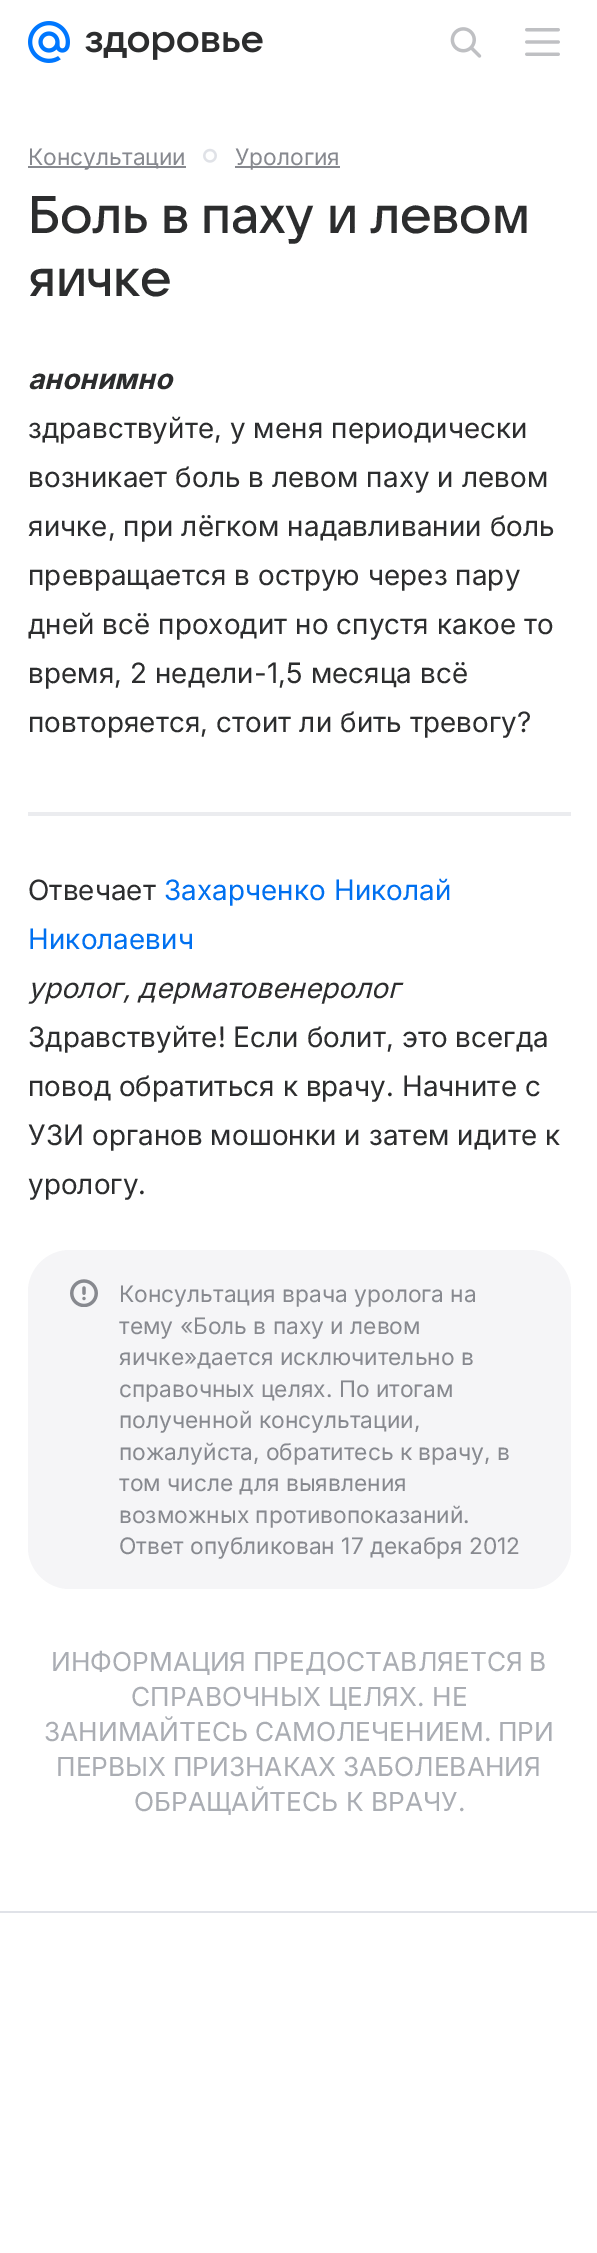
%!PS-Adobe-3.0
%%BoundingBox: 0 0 597 2253
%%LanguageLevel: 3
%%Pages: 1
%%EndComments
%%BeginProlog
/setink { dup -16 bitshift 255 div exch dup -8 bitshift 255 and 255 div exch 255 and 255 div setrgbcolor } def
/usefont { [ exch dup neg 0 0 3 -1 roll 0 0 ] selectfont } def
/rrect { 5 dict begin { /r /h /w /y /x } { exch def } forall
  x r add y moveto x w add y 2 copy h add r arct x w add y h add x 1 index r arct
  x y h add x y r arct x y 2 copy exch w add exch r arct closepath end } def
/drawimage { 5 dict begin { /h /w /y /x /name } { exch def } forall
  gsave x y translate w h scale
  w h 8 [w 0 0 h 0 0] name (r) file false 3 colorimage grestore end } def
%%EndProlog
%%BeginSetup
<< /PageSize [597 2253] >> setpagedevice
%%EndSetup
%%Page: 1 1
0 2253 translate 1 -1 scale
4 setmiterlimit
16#FFFFFF setink
0 0 597 2253 rectfill
(img1.raw) 28 21 42 42 drawimage
(img2.raw) 85 31 178 29 drawimage
(img3.raw) 450 27 32 31 drawimage
(img4.raw) 525 28 35 28 drawimage
16#87898F setink
28 166 158 2 rectfill
/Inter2-Regular 22.75 usefont
28 165 moveto (Консультации) show
(img5.raw) 203 148 14 15 drawimage
235 166 105 2 rectfill
235 165 moveto (Урология) show
/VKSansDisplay-Medium 52.5 usefont
16#2C2D2E setink
28 233 moveto -0.25 0 (Боль в паху и левом) ashow
28 296 moveto -0.25 0 (яичке) ashow
/Inter-BoldItalic 28 usefont
28 389 moveto 0.1 0 (анонимно) ashow
/Inter-Regular 28 usefont
28 438 moveto 0.1 0 (здравствуйте, у меня периодически) ashow
28 487 moveto 0.1 0 (возникает боль в левом паху и левом) ashow
28 536 moveto 0.1 0 (яичке, при лёгком надавливании боль) ashow
28 585 moveto 0.1 0 (превращается в острую через пару) ashow
28 634 moveto 0.1 0 (дней всё проходит но спустя какое то) ashow
28 683 moveto 0.1 0 (время, 2 недели-1,5 месяца всё) ashow
28 732 moveto 0.1 0 (повторяется, стоит ли бить тревогу?) ashow
16#EBECEF setink
28 812 543 4 rectfill
16#2C2D2E setink
28 900 moveto 0.1 0 (Отвечает) ashow
16#0070F0 setink
164 900 moveto 0.1 0 (Захарченко Николай) ashow
28 949 moveto 0.1 0 (Николаевич) ashow
/Inter-Italic 28 usefont
16#2C2D2E setink
28 998 moveto 0.1 0 (уролог, дерматовенеролог) ashow
/Inter-Regular 28 usefont
28 1047 moveto 0.1 0 (Здравствуйте! Если болит, это всегда) ashow
28 1096 moveto 0.1 0 (повод обратиться к врачу. Начните с) ashow
28 1145 moveto 0.1 0 (УЗИ органов мошонки и затем идите к) ashow
28 1194 moveto 0.1 0 (урологу.) ashow
16#F5F5F7 setink
28 1250 543 339 42 rrect fill
(img6.raw) 70 1279 28 28 drawimage
/Inter2-Regular 22.75 usefont
16#87898F setink
[
    [(Консультация врача уролога на) 119 1302]
    [(тему «Боль в паху и левом) 119 1334]
    [(яичке»дается исключительно в) 119 1365]
    [(справочных целях. По итогам) 119 1397]
    [(полученной консультации,) 119 1428]
    [(пожалуйста, обратитесь к врачу, в) 119 1460]
    [(том числе для выявления) 119 1491]
    [(возможных противопоказаний.) 119 1523]
    [(Ответ опубликован 17 декабря 2012) 119 1554]
] { aload pop moveto show } forall
/Inter2-Regular 26.25 usefont
16#AAADB3 setink
51 1671 moveto -1 0 32 (ИНФОРМАЦИЯ ПРЕДОСТАВЛЯЕТСЯ В) widthshow
131 1706 moveto (СПРАВОЧНЫХ ЦЕЛЯХ. НЕ) show
44 1741 moveto -1 0 32 (ЗАНИМАЙТЕСЬ САМОЛЕЧЕНИЕМ. ПРИ) widthshow
56 1776 moveto -1 0 32 (ПЕРВЫХ ПРИЗНАКАХ ЗАБОЛЕВАНИЯ) widthshow
134 1811 moveto (ОБРАЩАЙТЕСЬ К ВРАЧУ.) show
16#E0E2E8 setink
0 1911 597 2 rectfill
showpage
%%EOF
